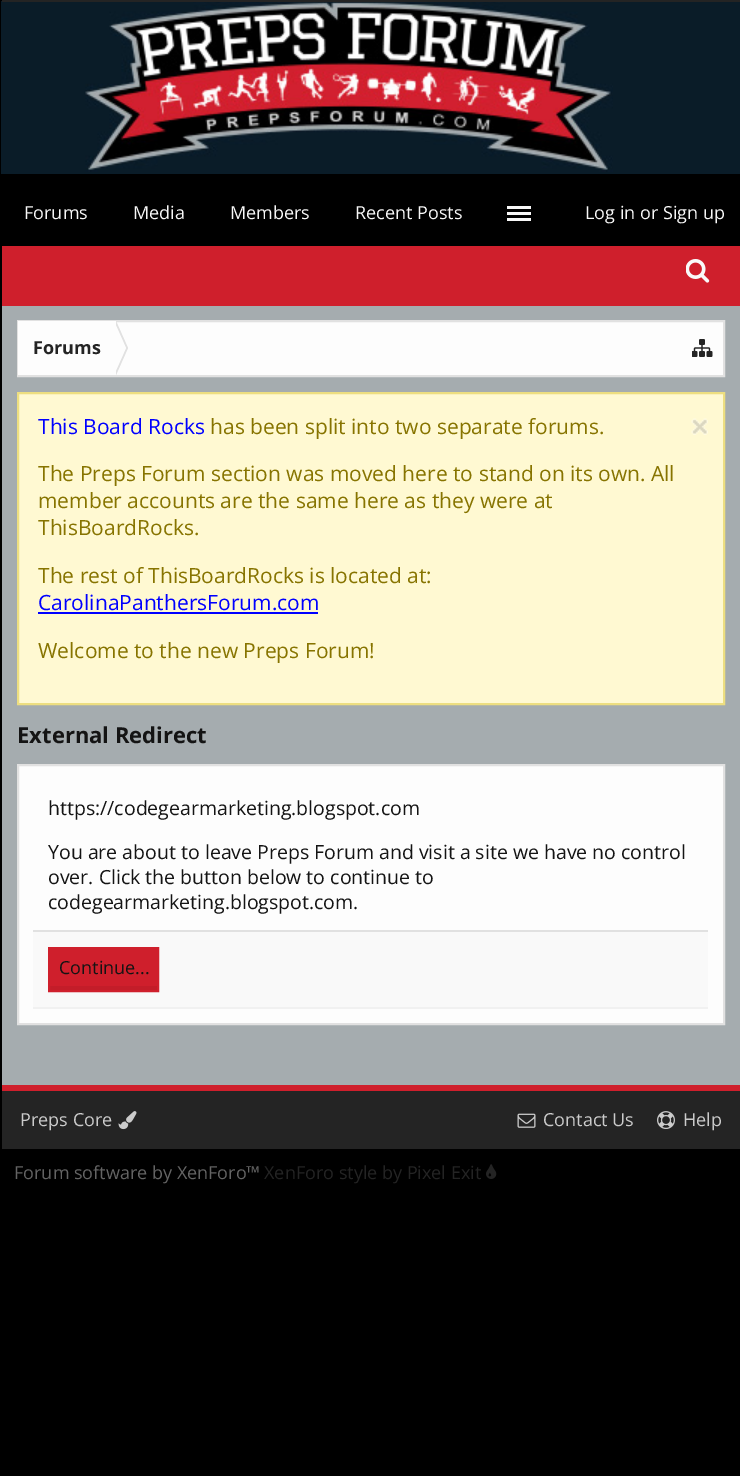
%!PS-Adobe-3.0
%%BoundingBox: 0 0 740 1476
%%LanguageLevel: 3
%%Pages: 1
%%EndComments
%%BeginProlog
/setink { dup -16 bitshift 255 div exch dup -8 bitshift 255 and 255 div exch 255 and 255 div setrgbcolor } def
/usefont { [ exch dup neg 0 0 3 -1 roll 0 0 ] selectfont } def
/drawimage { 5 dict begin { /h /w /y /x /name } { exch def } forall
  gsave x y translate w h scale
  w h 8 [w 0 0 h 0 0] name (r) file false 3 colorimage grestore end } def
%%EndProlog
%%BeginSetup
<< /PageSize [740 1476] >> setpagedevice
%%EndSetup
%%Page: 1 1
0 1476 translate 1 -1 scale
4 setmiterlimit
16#000000 setink
0 0 740 1476 rectfill
16#0A1C28 setink
1 1 739 173 rectfill
16#242424 setink
2 0 738 2 rectfill
(img1.raw) 85 2 528 170 drawimage
/OpenSans-Regular 18 usefont
16#F8F8F8 setink
[
    [(Forums) 24 219]
    [(Media) 133 219]
    [(Members) 230 219]
    [(Recent Posts) 355 219]
] { aload pop moveto show } forall
[
    [507 206 24 3 16#F8F8F8]
    [507 212 24 3 16#F8F8F8]
    [507 218 24 3 16#F8F8F8]
    [2 246 738 60 16#CF1F2C]
] { aload pop setink rectfill } forall
16#F8F8F8 setink
585 219 moveto (Log in or Sign up) show
(img2.raw) 686 259 24 24 drawimage
[
    [2 306 738 779 16#A5ACAF]
    [2 1085 738 6 16#CF1F2C]
    [116 322 607 53 16#FDFDFD]
] { aload pop setink rectfill } forall
16#E1E1E1 setink
2 setlinewidth
18 321 706 55 rectstroke
16#FDFDFD setink
18 321 98 54 rectfill
/OpenSans-Bold 18 usefont
16#242424 setink
33 354 moveto (Forums) show
16#E1E1E1 setink
116 375 moveto 116 321 lineto 128 348 lineto closepath fill
16#FDFDFD setink
114 375 moveto 114 321 lineto 126 348 lineto closepath fill
(img3.raw) 692 339 21 18 drawimage
16#FFF9D2 setink
18 393 moveto 724 393 lineto 724 704 lineto 18 704 lineto closepath gsave fill grestore
16#EDDE80 setink
stroke
/OpenSans-Regular 21 usefont
16#0000FF setink
38 434 moveto (This Board Rocks) show
16#877400 setink
[
    [(has been split into two separate forums.) 210 434]
    [(The Preps Forum section was moved here to stand on its own. All) 38 481]
    [(member accounts are the same here as they were at) 38 508]
    [(ThisBoardRocks.) 38 535]
    [(The rest of ThisBoardRocks is located at:) 38 583]
] { aload pop moveto show } forall
16#0000FF setink
38 610 moveto (CarolinaPanthersForum.com) show
38 612 280 2 rectfill
16#877400 setink
38 658 moveto (Welcome to the new Preps Forum!) show
(img4.raw) 691 418 17 17 drawimage
/OpenSans-Bold 22 usefont
16#141414 setink
17 743 moveto (External Redirect) show
16#FDFDFD setink
18 765 moveto 724 765 lineto 724 1024 lineto 18 1024 lineto closepath gsave fill grestore
16#E1E1E1 setink
stroke
33 930 675 2 rectfill
/OpenSans-Regular 19.5 usefont
16#141414 setink
[
    [(https://codegearmarketing.blogspot.com) 48 815]
    [(You are about to leave Preps Forum and visit a site we have no control) 48 859]
    [(over. Click the button below to continue to) 48 884]
    [(codegearmarketing.blogspot.com.) 48 909]
] { aload pop moveto show } forall
[
    [33 932 675 75 16#F9F9F9]
    [33 1007 675 2 16#F1F1F1]
    [50 949 107 37 16#CF1F2C]
    [50 986 108 4 16#C31D29]
] { aload pop setink rectfill } forall
16#CF1F2C setink
49 948 109 43 rectstroke
/OpenSans-Regular 18 usefont
16#141414 setink
59 974 moveto (Continue...) show
16#242424 setink
2 1091 738 58 rectfill
16#CBCBCB setink
20 1126 moveto (Preps Core) show
(img5.raw) 118 1111 19 19 drawimage
(img6.raw) 517 1113 19 15 drawimage
543 1126 moveto (Contact Us) show
(img7.raw) 657 1111 18 18 drawimage
683 1126 moveto (Help) show
16#646464 setink
14 1179 moveto (Forum software by XenForo™) show
16#242424 setink
264 1179 moveto (XenForo style by Pixel Exit) show
(img8.raw) 486 1164 11 15 drawimage
showpage
%%EOF
